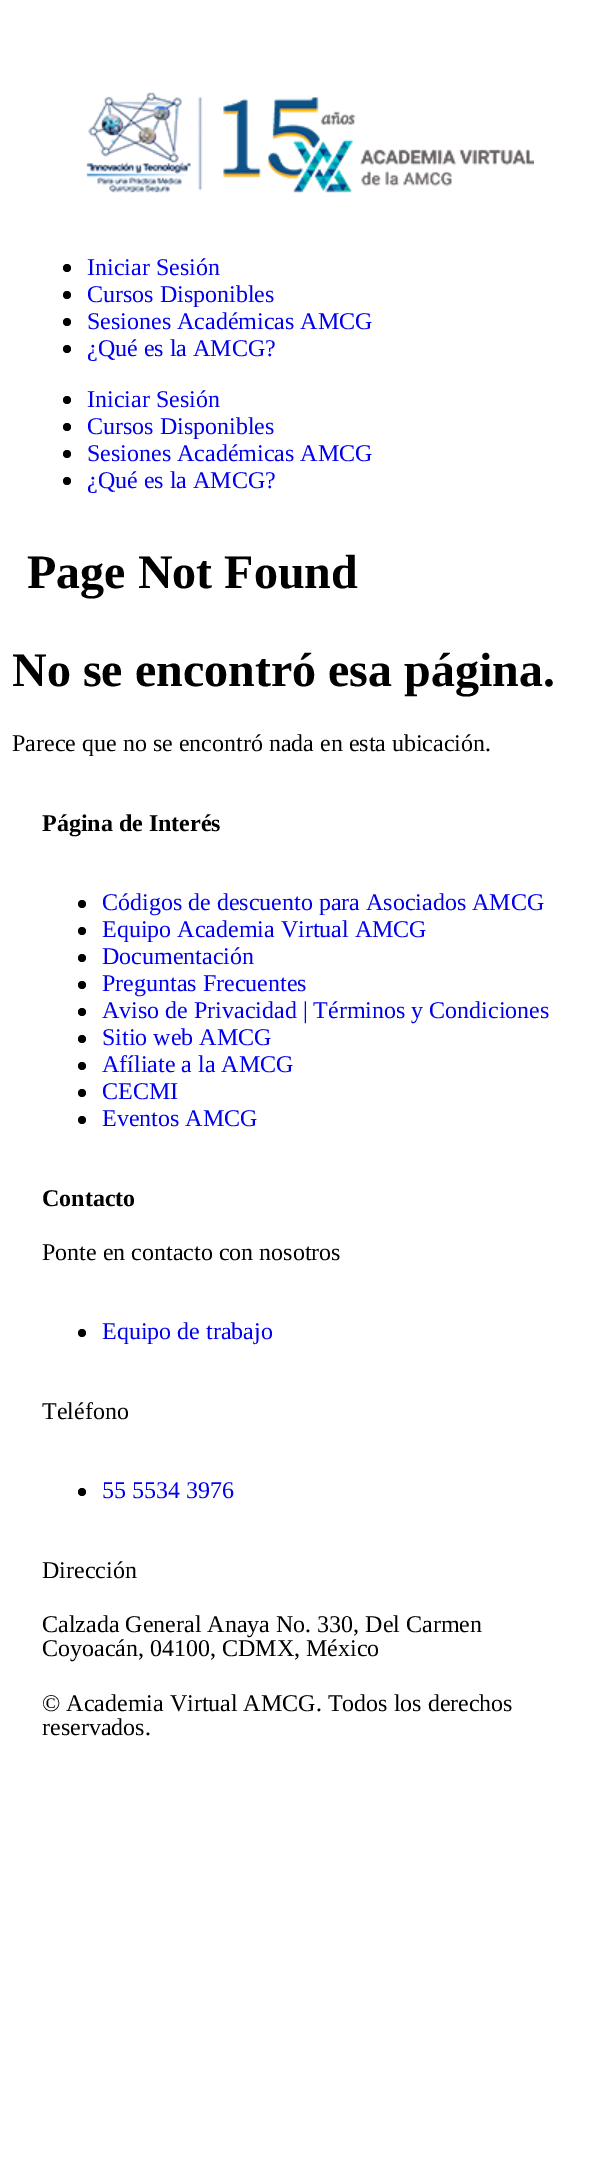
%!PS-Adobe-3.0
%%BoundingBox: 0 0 616 2177
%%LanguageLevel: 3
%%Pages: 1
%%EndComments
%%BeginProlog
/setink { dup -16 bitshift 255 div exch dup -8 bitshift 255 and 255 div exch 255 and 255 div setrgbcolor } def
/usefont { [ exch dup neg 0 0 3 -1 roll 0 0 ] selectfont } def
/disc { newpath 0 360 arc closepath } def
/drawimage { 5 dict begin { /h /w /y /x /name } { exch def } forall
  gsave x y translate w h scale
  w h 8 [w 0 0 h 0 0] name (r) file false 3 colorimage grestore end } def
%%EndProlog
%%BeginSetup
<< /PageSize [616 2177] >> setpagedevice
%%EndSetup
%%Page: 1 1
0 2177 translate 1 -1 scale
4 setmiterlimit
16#FFFFFF setink
0 0 616 2177 rectfill
(img1.raw) 86 92 448 101 drawimage
16#000000 setink
67 268 4 disc fill
/LiberationSerif-Regular 24 usefont
16#0000EE setink
87 275 moveto (Iniciar Sesión) show
16#000000 setink
67 295 4 disc fill
16#0000EE setink
87 302 moveto (Cursos Disponibles) show
16#000000 setink
67 322 4 disc fill
16#0000EE setink
87 329 moveto (Sesiones Académicas AMCG) show
16#000000 setink
67 349 4 disc fill
16#0000EE setink
87 356 moveto (¿Qué es la AMCG?) show
16#000000 setink
67 400 4 disc fill
16#0000EE setink
87 407 moveto (Iniciar Sesión) show
16#000000 setink
67 427 4 disc fill
16#0000EE setink
87 434 moveto (Cursos Disponibles) show
16#000000 setink
67 454 4 disc fill
16#0000EE setink
87 461 moveto (Sesiones Académicas AMCG) show
16#000000 setink
67 481 4 disc fill
16#0000EE setink
87 488 moveto (¿Qué es la AMCG?) show
/LiberationSerif-Bold 48 usefont
16#000000 setink
27 588 moveto (Page Not Found) show
12 686 moveto (No se encontró esa página.) show
/LiberationSerif-Regular 24 usefont
12 751 moveto (Parece que no se encontró nada en esta ubicación.) show
/LiberationSerif-Bold 24 usefont
42 831 moveto (Página de Interés) show
82 904 4 disc fill
/LiberationSerif-Regular 24 usefont
16#0000EE setink
102 910 moveto (Códigos de descuento para Asociados AMCG) show
16#000000 setink
82 931 4 disc fill
16#0000EE setink
102 937 moveto (Equipo Academia Virtual AMCG) show
16#000000 setink
82 958 4 disc fill
16#0000EE setink
102 964 moveto (Documentación) show
16#000000 setink
82 985 4 disc fill
16#0000EE setink
102 991 moveto (Preguntas Frecuentes) show
16#000000 setink
82 1012 4 disc fill
16#0000EE setink
102 1018 moveto (Aviso de Privacidad | Términos y Condiciones) show
16#000000 setink
82 1039 4 disc fill
16#0000EE setink
102 1045 moveto (Sitio web AMCG) show
16#000000 setink
82 1066 4 disc fill
16#0000EE setink
102 1072 moveto (Afíliate a la AMCG) show
16#000000 setink
82 1093 4 disc fill
16#0000EE setink
102 1099 moveto (CECMI) show
16#000000 setink
82 1120 4 disc fill
16#0000EE setink
102 1126 moveto (Eventos AMCG) show
/LiberationSerif-Bold 24 usefont
16#000000 setink
42 1206 moveto (Contacto) show
/LiberationSerif-Regular 24 usefont
42 1260 moveto (Ponte en contacto con nosotros) show
82 1333 4 disc fill
16#0000EE setink
102 1339 moveto (Equipo de trabajo) show
16#000000 setink
42 1419 moveto (Teléfono) show
82 1492 4 disc fill
16#0000EE setink
102 1498 moveto (55 5534 3976) show
16#000000 setink
[
    [(Dirección) 42 1578]
    [(Calzada General Anaya No. 330, Del Carmen) 42 1632]
    [(Coyoacán, 04100, CDMX, México) 42 1656]
    [(© Academia Virtual AMCG. Todos los derechos) 42 1711]
    [(reservados.) 42 1735]
] { aload pop moveto show } forall
showpage
%%EOF
